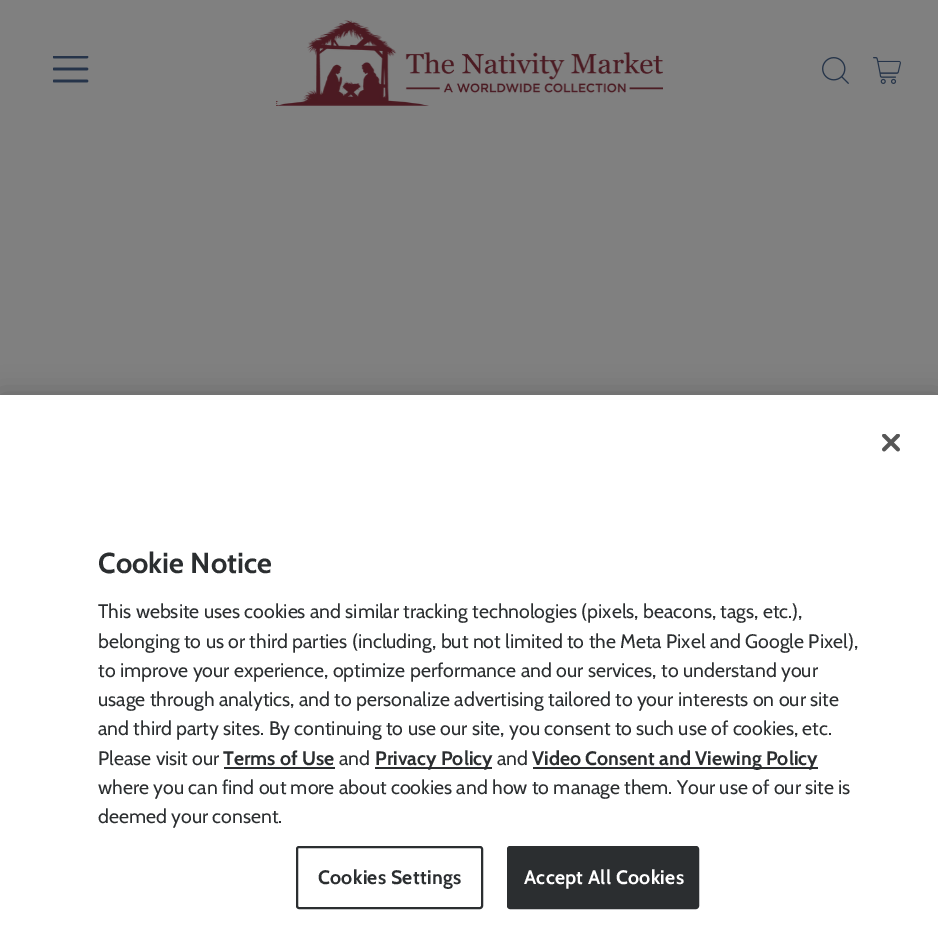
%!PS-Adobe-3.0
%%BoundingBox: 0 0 938 933
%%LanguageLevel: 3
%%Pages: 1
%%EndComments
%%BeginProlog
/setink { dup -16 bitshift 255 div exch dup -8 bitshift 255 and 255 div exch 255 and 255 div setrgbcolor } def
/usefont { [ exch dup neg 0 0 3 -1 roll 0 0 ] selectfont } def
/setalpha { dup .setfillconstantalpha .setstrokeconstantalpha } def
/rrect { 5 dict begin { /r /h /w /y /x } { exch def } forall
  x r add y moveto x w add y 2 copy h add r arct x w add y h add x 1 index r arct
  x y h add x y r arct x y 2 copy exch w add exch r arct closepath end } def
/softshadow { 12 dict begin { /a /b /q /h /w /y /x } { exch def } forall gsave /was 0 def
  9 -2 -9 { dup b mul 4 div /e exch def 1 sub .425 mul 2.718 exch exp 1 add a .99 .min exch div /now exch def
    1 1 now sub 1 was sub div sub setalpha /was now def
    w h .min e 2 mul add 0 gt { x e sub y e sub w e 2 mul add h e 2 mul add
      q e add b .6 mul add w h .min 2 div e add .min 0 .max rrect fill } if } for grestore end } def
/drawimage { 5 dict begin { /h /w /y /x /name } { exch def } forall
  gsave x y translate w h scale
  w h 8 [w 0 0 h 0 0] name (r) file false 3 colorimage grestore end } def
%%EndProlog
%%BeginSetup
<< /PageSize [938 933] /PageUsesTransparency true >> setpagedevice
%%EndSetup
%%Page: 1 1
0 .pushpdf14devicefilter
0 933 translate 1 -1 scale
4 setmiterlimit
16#808080 setink
0 0 938 933 rectfill
(img1.raw) 53 56 36 27 drawimage
(img2.raw) 276 20 387 86 drawimage
(img3.raw) 822 57 27 27 drawimage
(img4.raw) 873 57 28 27 drawimage
16#000000 setink
0 395 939 538 0 13.5 0.2 softshadow
16#FFFFFF setink
0 395 938 538 rectfill
(img5.raw) 882 434 18 18 drawimage
/Cabin-Bold 28.75 usefont
16#2B2E30 setink
98 573 moveto (Cookie Notice) show
/Cabin-Regular 19.5 usefont
[
    [(This website uses cookies and similar tracking technologies \(pixels, beacons, tags, etc.\),) 98 618]
    [(belonging to us or third parties \(including, but not limited to the Meta Pixel and Google Pixel\),) 98 648]
    [(to improve your experience, optimize performance and our services, to understand your) 98 677]
    [(usage through analytics, and to personalize advertising tailored to your interests on our site) 98 706]
    [(and third party sites. By continuing to use our site, you consent to such use of cookies, etc.) 98 735]
    [(Please visit our) 98 765]
] { aload pop moveto show } forall
/Cabin-Bold 19.5 usefont
223 765 moveto (Terms of Use) show
224 767 111 2 rectfill
/Cabin-Regular 19.5 usefont
339 765 moveto (and) show
375 767 117 2 rectfill
/Cabin-Bold 19.5 usefont
375 765 moveto (Privacy Policy) show
/Cabin-Regular 19.5 usefont
497 765 moveto (and) show
533 767 285 2 rectfill
/Cabin-Bold 19.5 usefont
532 765 moveto (Video Consent and Viewing Policy) show
/Cabin-Regular 19.5 usefont
98 794 moveto (where you can find out more about cookies and how to manage them. Your use of our site is) show
98 823 moveto (deemed your consent.) show
2 setlinewidth
297 847 185 61 2 rrect stroke
/Cabin-Bold 19.5 usefont
318 884 moveto 0.25 0 (Cookies Settings) ashow
508 847 190 61 2 rrect gsave fill grestore
stroke
16#FFFFFF setink
524 884 moveto 0.25 0 (Accept All Cookies) ashow
.poppdf14devicefilter showpage
%%EOF
